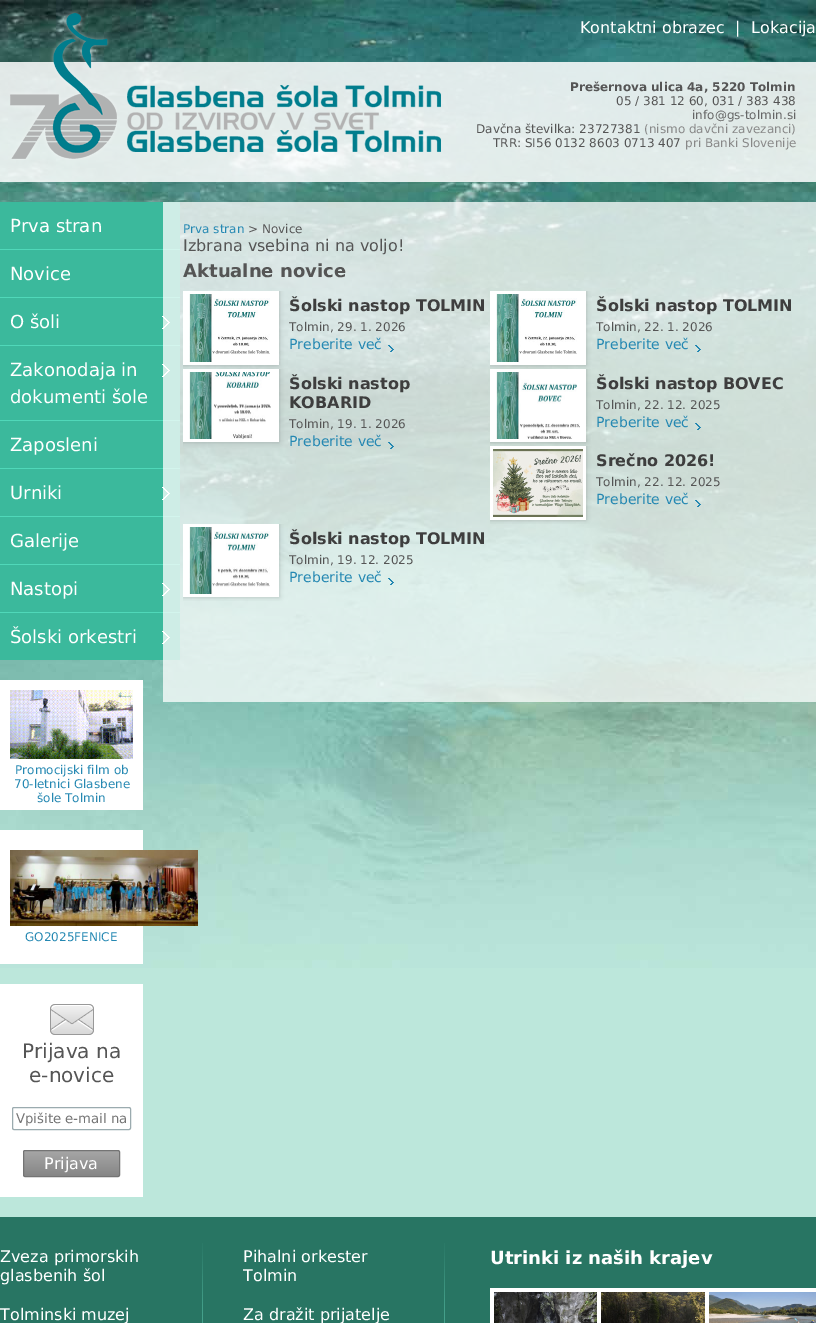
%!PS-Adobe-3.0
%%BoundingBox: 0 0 816 1323
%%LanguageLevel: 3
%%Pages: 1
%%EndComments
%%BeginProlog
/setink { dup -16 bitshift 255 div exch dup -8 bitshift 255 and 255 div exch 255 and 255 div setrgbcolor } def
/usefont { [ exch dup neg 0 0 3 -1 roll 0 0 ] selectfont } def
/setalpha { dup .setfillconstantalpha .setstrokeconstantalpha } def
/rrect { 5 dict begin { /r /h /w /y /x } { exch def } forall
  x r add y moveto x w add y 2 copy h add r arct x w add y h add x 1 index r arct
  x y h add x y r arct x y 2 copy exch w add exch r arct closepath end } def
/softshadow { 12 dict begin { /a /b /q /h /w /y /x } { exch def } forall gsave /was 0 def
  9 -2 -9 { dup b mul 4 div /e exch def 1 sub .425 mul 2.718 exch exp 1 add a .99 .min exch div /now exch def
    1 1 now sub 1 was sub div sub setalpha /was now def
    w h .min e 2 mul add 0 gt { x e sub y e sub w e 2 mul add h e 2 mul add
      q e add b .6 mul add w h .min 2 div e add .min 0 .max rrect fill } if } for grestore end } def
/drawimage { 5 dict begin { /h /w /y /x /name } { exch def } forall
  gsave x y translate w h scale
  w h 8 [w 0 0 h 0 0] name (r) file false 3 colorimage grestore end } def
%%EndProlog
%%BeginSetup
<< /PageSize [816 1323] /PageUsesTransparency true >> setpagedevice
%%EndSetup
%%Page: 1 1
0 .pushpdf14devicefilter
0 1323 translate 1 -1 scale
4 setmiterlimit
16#BCE7DB setink
0 0 816 1323 rectfill
(img1.raw) 0 0 816 968 drawimage
0.85 setalpha
16#FFFFFF setink
0 62 816 120 rectfill
1 setalpha
(img2.raw) 10 10 107 150 drawimage
(img3.raw) 127 85 314 67 drawimage
/DejaVuSans-Regular 16 usefont
[
    [(Kontaktni obrazec) 580 33]
    [(|) 735 33]
    [(Lokacija) 751 33]
] { aload pop moveto show } forall
/DejaVuSans-Bold 12 usefont
16#555555 setink
570 91 moveto (Prešernova ulica 4a, 5220 Tolmin) show
/DejaVuSans-Regular 12 usefont
616 105 moveto (05 / 381 12 60, 031 / 383 438) show
16#666666 setink
692 119 moveto (info@gs-tolmin.si) show
16#555555 setink
476 133 moveto (Davčna številka: 23727381) show
16#888888 setink
644 133 moveto (\(nismo davčni zavezanci\)) show
16#555555 setink
493 147 moveto (TRR: SI56 0132 8603 0713 407) show
16#888888 setink
685 147 moveto (pri Banki Slovenije) show
16#3BB99C setink
0 202 180 458 rectfill
16#50D8B9 setink
0 249 180 1 rectfill
/DejaVuSans-Regular 18 usefont
16#FFFFFF setink
10 232 moveto (Prva stran) show
16#50D8B9 setink
0 297 180 1 rectfill
16#FFFFFF setink
10 280 moveto (Novice) show
16#50D8B9 setink
0 345 180 1 rectfill
16#FFFFFF setink
10 328 moveto (O šoli) show
[
    [0 420 180 1 16#50D8B9]
    [0 468 180 1 16#50D8B9]
    [0 516 180 1 16#50D8B9]
    [0 564 180 1 16#50D8B9]
    [0 612 180 1 16#50D8B9]
] { aload pop setink rectfill } forall
0.75 setalpha
[
    [163 202 653 500 16#FFFFFF]
] { aload pop setink rectfill } forall
1 setalpha
(img4.raw) 162 316 8 13 drawimage
10 376 moveto (Zakonodaja in) show
(img4.raw) 162 364 8 13 drawimage
[
    [(dokumenti šole) 10 403]
    [(Zaposleni) 10 451]
    [(Urniki) 10 499]
] { aload pop moveto show } forall
(img4.raw) 162 487 8 13 drawimage
10 547 moveto (Galerije) show
10 595 moveto (Nastopi) show
(img4.raw) 162 583 8 13 drawimage
10 643 moveto (Šolski orkestri) show
(img4.raw) 162 631 8 13 drawimage
0 680 143 130 rectfill
(img5.raw) 10 690 123 69 drawimage
/DejaVuSans-Regular 12 usefont
16#2588B2 setink
[
    [(Promocijski film ob) 15 774]
    [(70-letnici Glasbene) 14 788]
    [(šole Tolmin) 37 802]
] { aload pop moveto show } forall
16#FFFFFF setink
0 830 143 134 rectfill
(img6.raw) 10 850 188 76 drawimage
16#2588B2 setink
25 941 moveto (GO2025FENICE) show
16#FFFFFF setink
0 984 143 213 rectfill
(img7.raw) 50 1004 44 31 drawimage
/DejaVuSans-Regular 20 usefont
16#555555 setink
22 1058 moveto (Prijava na) show
29 1082 moveto (e-novice) show
16#9BABAF setink
12.5 1107.5 118 22 1.5 rrect stroke
/DejaVuSans-Regular 13.25 usefont
16#757575 setink
16 1123 moveto (Vpišite e-mail na) show
gsave
23 1150 97 27 2 rrect clip newpath
gsave 23 1151 moveto 120 1151 lineto 120 1176 lineto 23 1176 lineto closepath clip newpath
<< /ShadingType 2 /ColorSpace /DeviceRGB /Coords [72 1151 72 1176] /Extend [true true] /Function << /FunctionType 2 /Domain [0 1] /C0 [0.651 0.651 0.651] /C1 [0.525 0.525 0.525] /N 1 >> >> shfill grestore
grestore
16#747474 setink
23.5 1150.5 96 26 1.5 rrect stroke
/DejaVuSans-Regular 16 usefont
16#FFFFFF setink
44 1169 moveto (Prijava) show
/DejaVuSans-Regular 12 usefont
16#2588B2 setink
183 233 moveto (Prva stran) show
16#555555 setink
248 233 moveto (> Novice) show
/DejaVuSans-Regular 16 usefont
183 251 moveto (Izbrana vsebina ni na voljo!) show
/DejaVuSans-Bold 18 usefont
183 277 moveto (Aktualne novice) show
gsave
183 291 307 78 rectclip
16#000000 setink
183 291 96 74 0 2.5 0.2 softshadow
grestore
16#FFFFFF setink
183 291 96 74 rectfill
(img8.raw) 189 294 81 68 drawimage
/DejaVuSans-Bold 16 usefont
16#3E3E3E setink
289 311 moveto (Šolski nastop TOLMIN) show
/DejaVuSans-Regular 12 usefont
16#555555 setink
289 331 moveto (Tolmin, 29. 1. 2026) show
/DejaVuSans-Regular 14 usefont
16#2588B2 setink
289 349 moveto (Preberite več) show
(img9.raw) 388 345 6 7 drawimage
gsave
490 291 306 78 rectclip
16#000000 setink
490 291 96 74 0 2.5 0.2 softshadow
grestore
16#FFFFFF setink
490 291 96 74 rectfill
(img10.raw) 496 294 81 68 drawimage
/DejaVuSans-Bold 16 usefont
16#3E3E3E setink
596 311 moveto (Šolski nastop TOLMIN) show
/DejaVuSans-Regular 12 usefont
16#555555 setink
596 331 moveto (Tolmin, 22. 1. 2026) show
/DejaVuSans-Regular 14 usefont
16#2588B2 setink
596 349 moveto (Preberite več) show
(img11.raw) 695 345 6 7 drawimage
gsave
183 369 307 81 rectclip
16#000000 setink
183 369 96 73 0 2.5 0.2 softshadow
grestore
16#FFFFFF setink
183 369 96 73 rectfill
(img12.raw) 189 372 82 67 drawimage
/DejaVuSans-Bold 16 usefont
16#3E3E3E setink
289 389 moveto (Šolski nastop) show
289 408 moveto (KOBARID) show
/DejaVuSans-Regular 12 usefont
16#555555 setink
289 428 moveto (Tolmin, 19. 1. 2026) show
/DejaVuSans-Regular 14 usefont
16#2588B2 setink
289 446 moveto (Preberite več) show
(img13.raw) 388 442 6 7 drawimage
gsave
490 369 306 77 rectclip
16#000000 setink
490 369 96 73 0 2.5 0.2 softshadow
grestore
16#FFFFFF setink
490 369 96 73 rectfill
(img14.raw) 496 372 84 67 drawimage
/DejaVuSans-Bold 16 usefont
16#3E3E3E setink
596 389 moveto (Šolski nastop BOVEC) show
/DejaVuSans-Regular 12 usefont
16#555555 setink
596 409 moveto (Tolmin, 22. 12. 2025) show
/DejaVuSans-Regular 14 usefont
16#2588B2 setink
596 427 moveto (Preberite več) show
(img15.raw) 695 423 6 7 drawimage
gsave
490 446 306 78 rectclip
16#000000 setink
490 446 96 74 0 2.5 0.2 softshadow
grestore
16#FFFFFF setink
490 446 96 74 rectfill
(img16.raw) 493 449 90 68 drawimage
/DejaVuSans-Bold 16 usefont
16#3E3E3E setink
596 466 moveto (Srečno 2026!) show
/DejaVuSans-Regular 12 usefont
16#555555 setink
596 486 moveto (Tolmin, 22. 12. 2025) show
/DejaVuSans-Regular 14 usefont
16#2588B2 setink
596 504 moveto (Preberite več) show
(img17.raw) 695 500 6 7 drawimage
gsave
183 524 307 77 rectclip
16#000000 setink
183 524 96 73 0 2.5 0.2 softshadow
grestore
16#FFFFFF setink
183 524 96 73 rectfill
(img18.raw) 189 527 81 67 drawimage
/DejaVuSans-Bold 16 usefont
16#3E3E3E setink
289 544 moveto (Šolski nastop TOLMIN) show
/DejaVuSans-Regular 12 usefont
16#555555 setink
289 564 moveto (Tolmin, 19. 12. 2025) show
/DejaVuSans-Regular 14 usefont
16#2588B2 setink
289 582 moveto (Preberite več) show
(img19.raw) 388 578 6 7 drawimage
16#287563 setink
0 1217 816 106 rectfill
/DejaVuSans-Regular 16 usefont
16#FFFFFF setink
[
    [(Zveza primorskih) 0 1262]
    [(glasbenih šol) 0 1281]
    [(Tolminski muzej) 0 1320]
] { aload pop moveto show } forall
(img20.raw) 202 1243 1 80 drawimage
[
    [(Pihalni orkester) 243 1262]
    [(Tolmin) 243 1281]
    [(Za dražit prijatelje) 243 1320]
] { aload pop moveto show } forall
(img20.raw) 444 1243 1 80 drawimage
/DejaVuSans-Bold 18 usefont
490 1264 moveto (Utrinki iz naših krajev) show
490 1288 326 35 rectfill
(img21.raw) 494 1292 103 31 drawimage
(img22.raw) 601 1292 104 31 drawimage
(img23.raw) 709 1292 107 31 drawimage
.poppdf14devicefilter showpage
%%EOF
